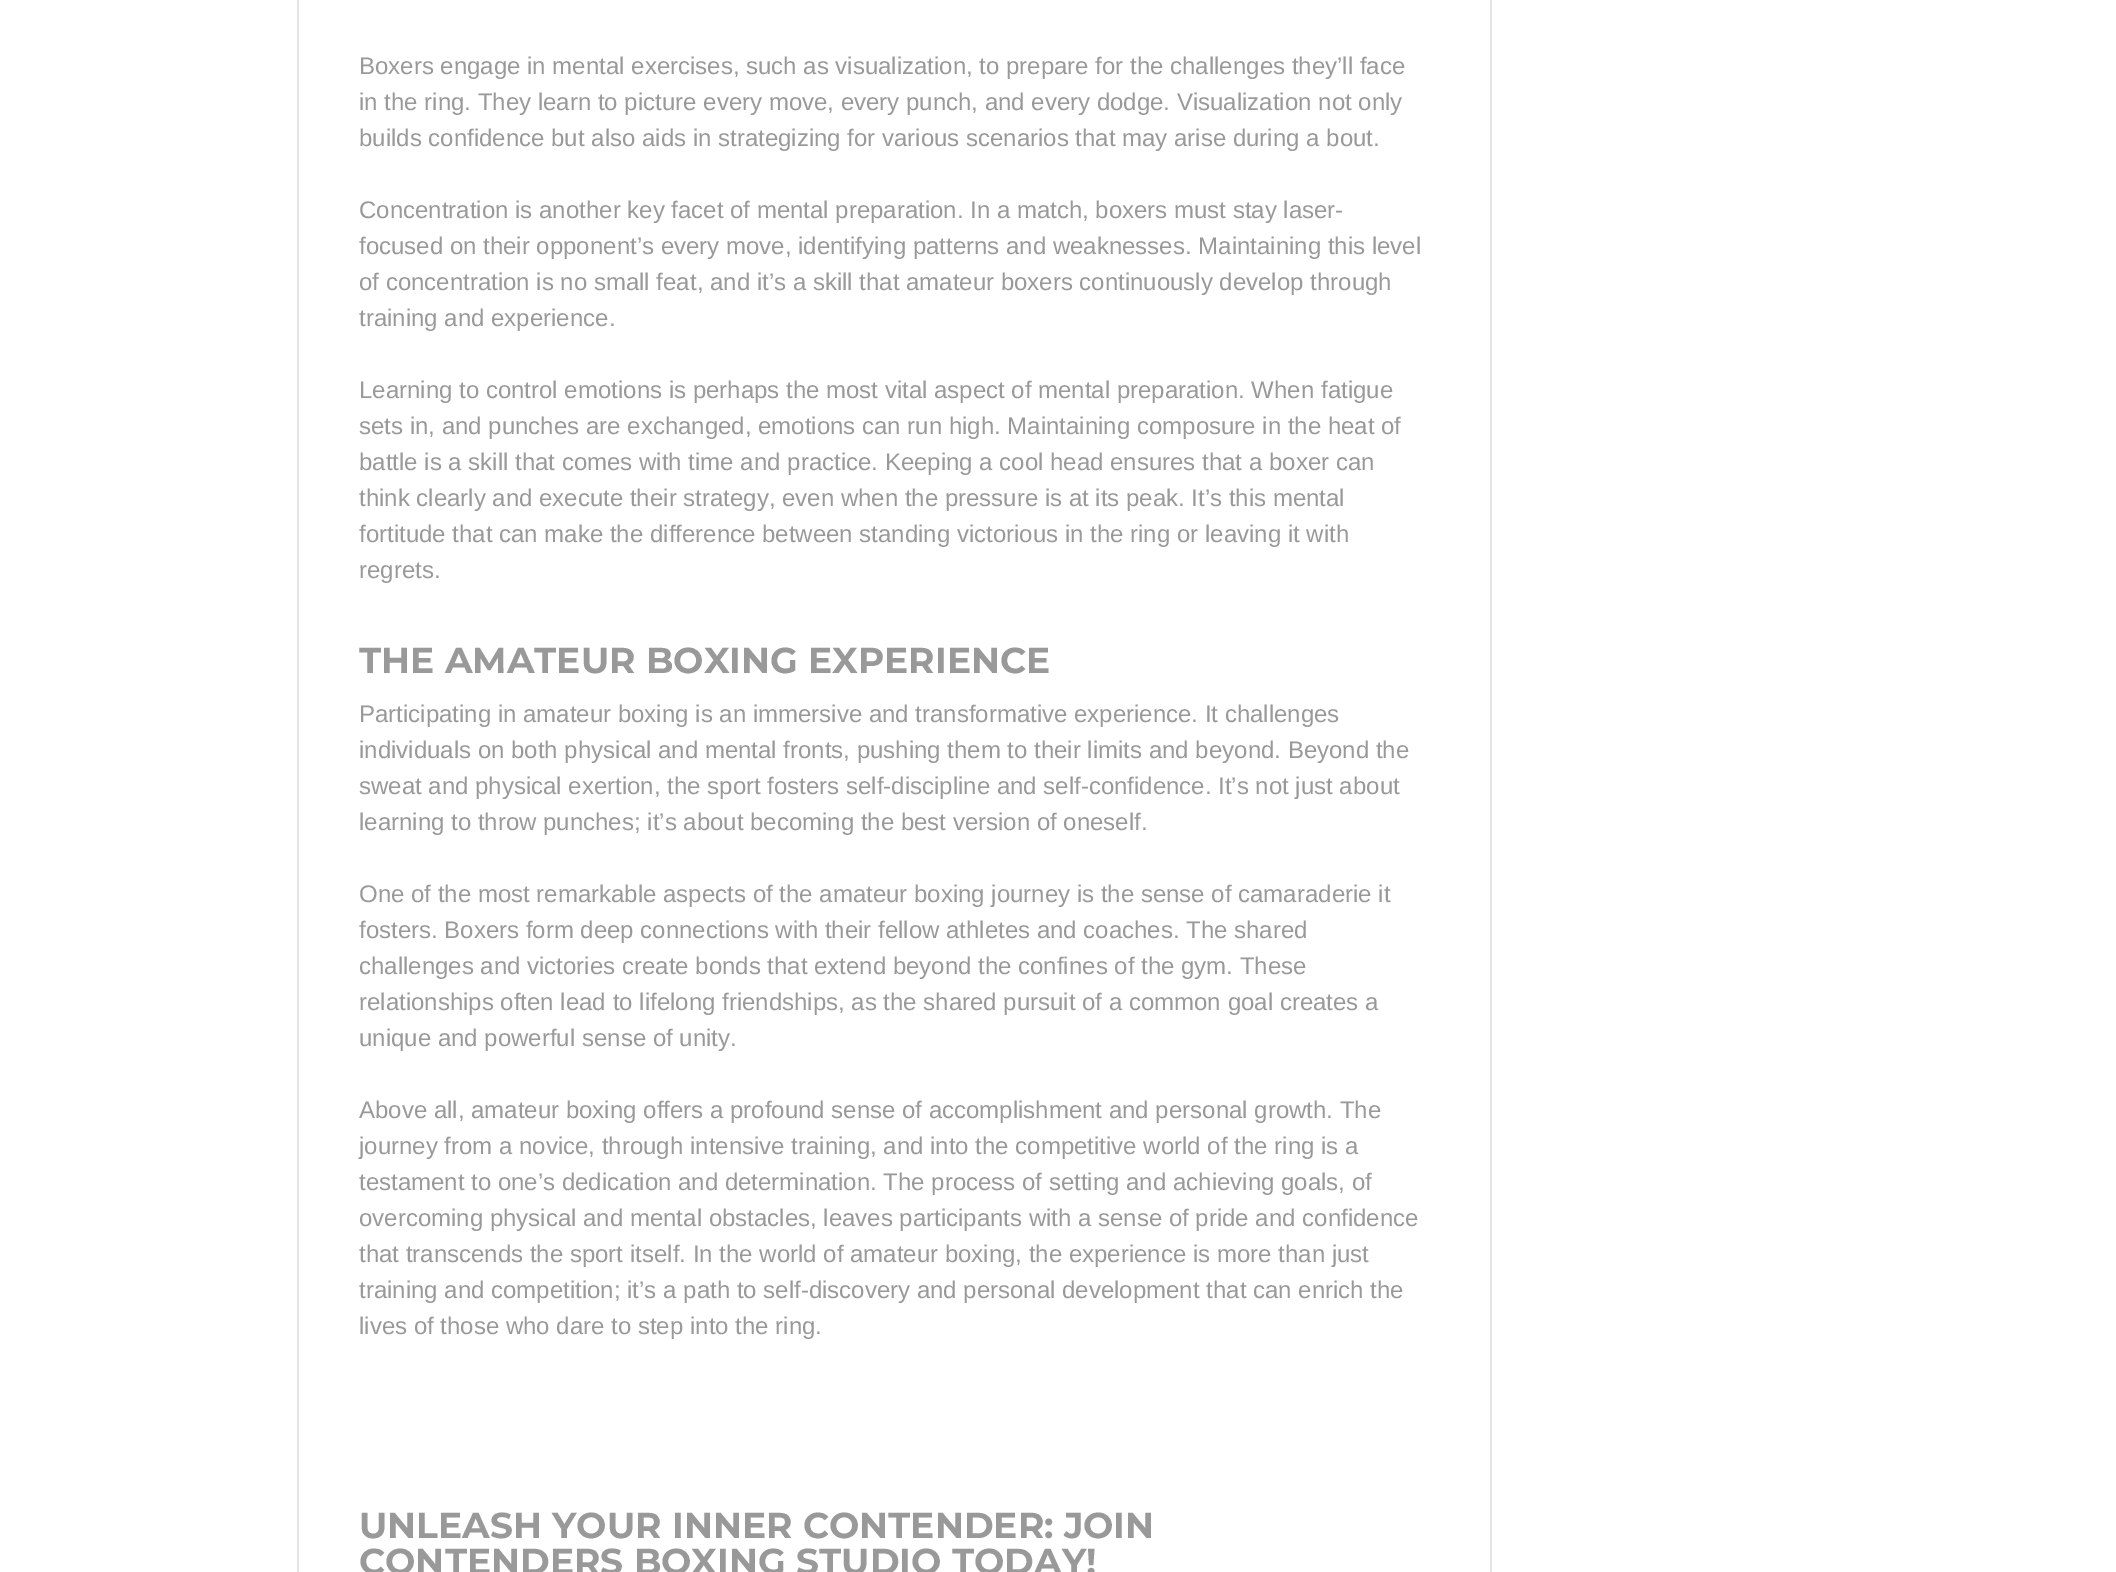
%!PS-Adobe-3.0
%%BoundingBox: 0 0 2116 1572
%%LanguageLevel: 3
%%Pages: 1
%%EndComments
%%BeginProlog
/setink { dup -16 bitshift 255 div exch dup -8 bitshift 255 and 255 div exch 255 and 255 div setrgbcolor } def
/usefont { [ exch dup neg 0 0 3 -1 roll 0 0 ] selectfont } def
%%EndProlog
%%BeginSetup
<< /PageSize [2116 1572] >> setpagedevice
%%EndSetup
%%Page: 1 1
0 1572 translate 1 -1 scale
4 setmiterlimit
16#FFFFFF setink
0 0 2116 1572 rectfill
16#E5E5E5 setink
1490 0 2 1572 rectfill
297 0 2 1572 rectfill
/LiberationSans-Regular 24 usefont
16#999999 setink
[
    [(Boxers engage in mental exercises, such as visualization, to prepare for the challenges they’ll face) 359 74]
    [(in the ring. They learn to picture every move, every punch, and every dodge. Visualization not only) 359 110]
    [(builds confidence but also aids in strategizing for various scenarios that may arise during a bout.) 359 146]
    [(Concentration is another key facet of mental preparation. In a match, boxers must stay laser-) 359 218]
    [(focused on their opponent’s every move, identifying patterns and weaknesses. Maintaining this level) 359 254]
    [(of concentration is no small feat, and it’s a skill that amateur boxers continuously develop through) 359 290]
    [(training and experience.) 359 326]
    [(Learning to control emotions is perhaps the most vital aspect of mental preparation. When fatigue) 359 398]
    [(sets in, and punches are exchanged, emotions can run high. Maintaining composure in the heat of) 359 434]
    [(battle is a skill that comes with time and practice. Keeping a cool head ensures that a boxer can) 359 470]
    [(think clearly and execute their strategy, even when the pressure is at its peak. It’s this mental) 359 506]
    [(fortitude that can make the difference between standing victorious in the ring or leaving it with) 359 542]
    [(regrets.) 359 578]
] { aload pop moveto show } forall
/Montserrat-Bold 36 usefont
359 673 moveto (THE AMATEUR BOXING EXPERIENCE) show
/LiberationSans-Regular 24 usefont
[
    [(Participating in amateur boxing is an immersive and transformative experience. It challenges) 359 722]
    [(individuals on both physical and mental fronts, pushing them to their limits and beyond. Beyond the) 359 758]
    [(sweat and physical exertion, the sport fosters self-discipline and self-confidence. It’s not just about) 359 794]
    [(learning to throw punches; it’s about becoming the best version of oneself.) 359 830]
    [(One of the most remarkable aspects of the amateur boxing journey is the sense of camaraderie it) 359 902]
    [(fosters. Boxers form deep connections with their fellow athletes and coaches. The shared) 359 938]
    [(challenges and victories create bonds that extend beyond the confines of the gym. These) 359 974]
    [(relationships often lead to lifelong friendships, as the shared pursuit of a common goal creates a) 359 1010]
    [(unique and powerful sense of unity.) 359 1046]
    [(Above all, amateur boxing offers a profound sense of accomplishment and personal growth. The) 359 1118]
    [(journey from a novice, through intensive training, and into the competitive world of the ring is a) 359 1154]
    [(testament to one’s dedication and determination. The process of setting and achieving goals, of) 359 1190]
    [(overcoming physical and mental obstacles, leaves participants with a sense of pride and confidence) 359 1226]
    [(that transcends the sport itself. In the world of amateur boxing, the experience is more than just) 359 1262]
    [(training and competition; it’s a path to self-discovery and personal development that can enrich the) 359 1298]
    [(lives of those who dare to step into the ring.) 359 1334]
] { aload pop moveto show } forall
/Montserrat-Bold 36 usefont
359 1538 moveto (UNLEASH YOUR INNER CONTENDER: JOIN) show
359 1574 moveto (CONTENDERS BOXING STUDIO TODAY!) show
showpage
%%EOF
